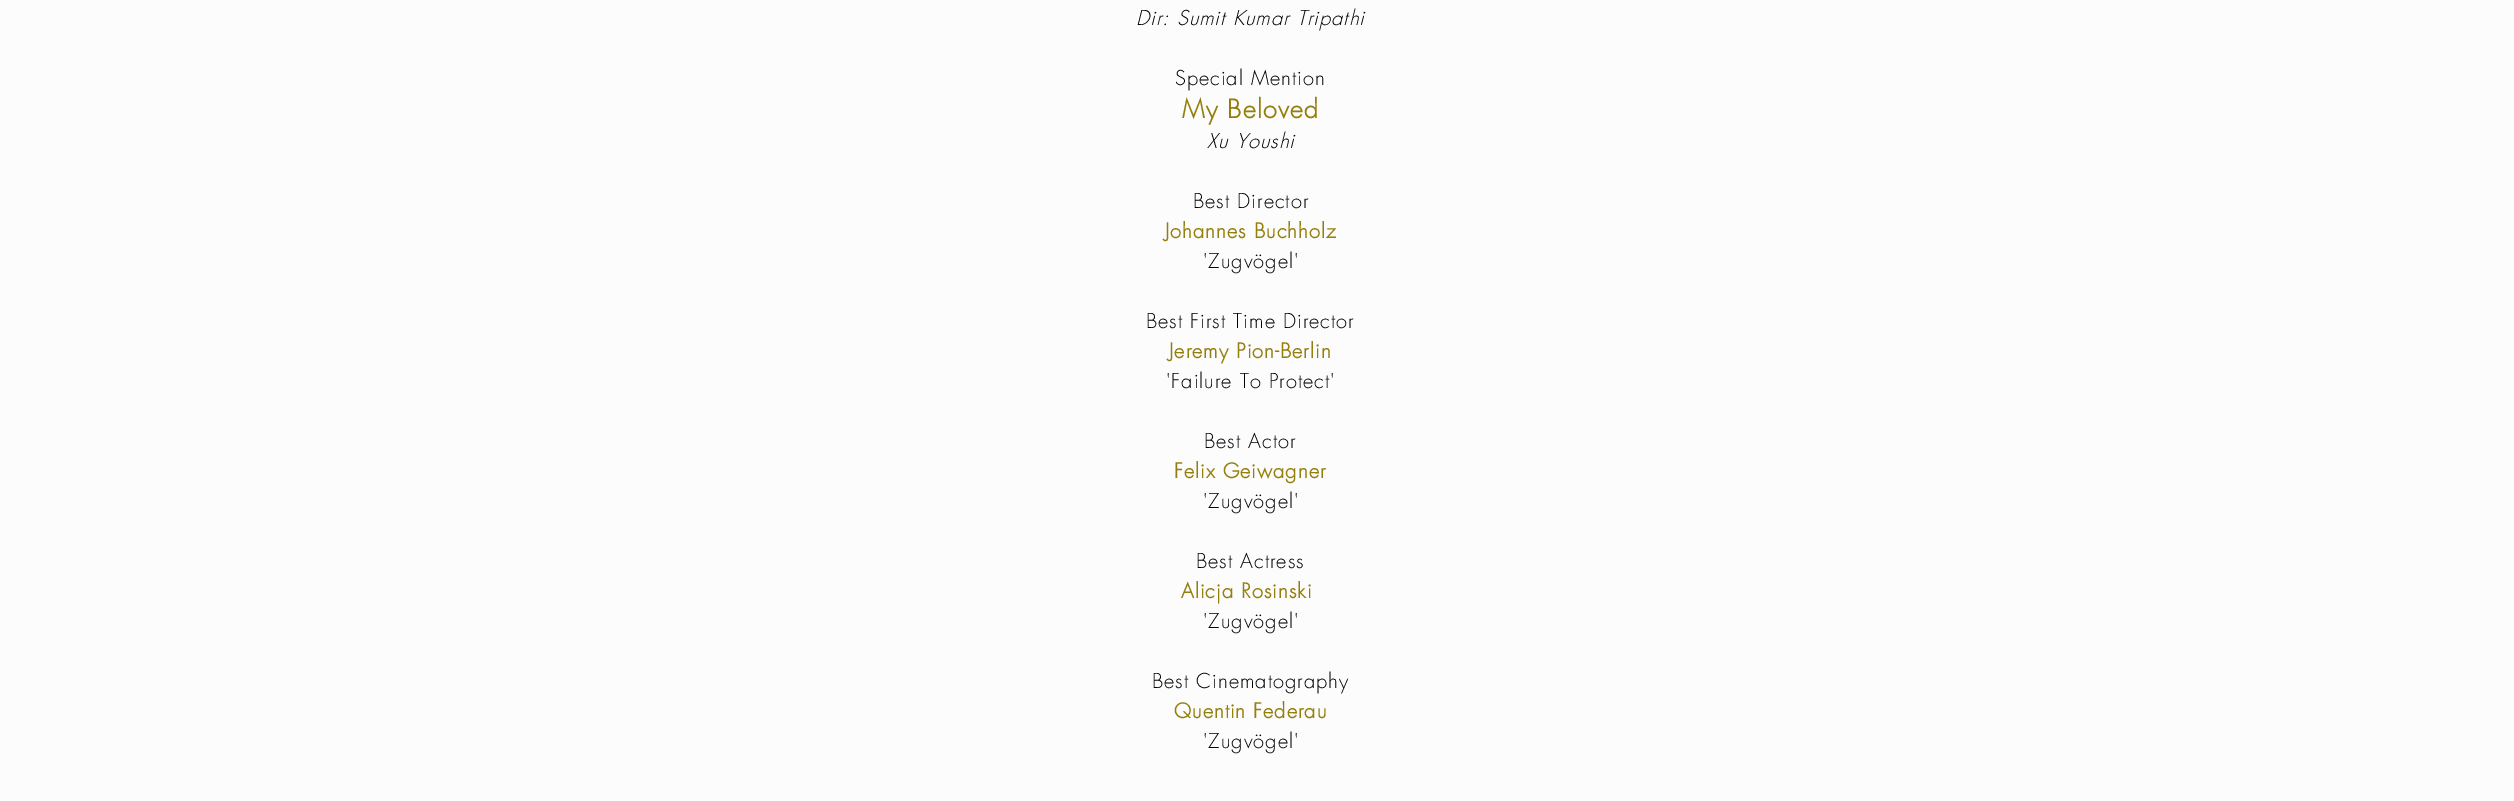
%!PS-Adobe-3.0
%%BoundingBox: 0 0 2514 801
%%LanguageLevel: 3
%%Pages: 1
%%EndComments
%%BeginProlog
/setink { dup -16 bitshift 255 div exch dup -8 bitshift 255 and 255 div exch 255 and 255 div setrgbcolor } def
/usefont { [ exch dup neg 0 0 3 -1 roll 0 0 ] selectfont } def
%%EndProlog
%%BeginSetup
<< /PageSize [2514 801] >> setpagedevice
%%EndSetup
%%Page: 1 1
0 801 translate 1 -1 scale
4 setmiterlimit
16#FCFCFC setink
0 0 2514 801 rectfill
/futura-LightItalic 20 usefont
16#000000 setink
1136 25 moveto 1 0 (Dir: Sumit Kumar Tripathi) ashow
/futura-Light 20 usefont
1175 85 moveto 1 0 (Special Mention) ashow
/futura-Bold 25 usefont
16#957F0C setink
1182 118 moveto 1.25 0 (My Beloved) ashow
/futura-LightItalic 20 usefont
16#000000 setink
1207 148 moveto 1 0 (Xu Youshi) ashow
/futura-Light 20 usefont
1193 208 moveto 1 0 (Best Director) ashow
/futura-Bold 20 usefont
16#957F0C setink
1165 238 moveto 1 0 (Johannes Buchholz) ashow
/futura-Light 20 usefont
16#000000 setink
1203 268 moveto 1 0 ('Zugvögel') ashow
1146 328 moveto 1 0 (Best First Time Director) ashow
/futura-Bold 20 usefont
16#957F0C setink
1169 358 moveto 1 0 (Jeremy Pion-Berlin) ashow
/futura-Light 20 usefont
16#000000 setink
1166 388 moveto 1 0 ('Failure To Protect') ashow
1204 448 moveto 1 0 (Best Actor) ashow
/futura-Bold 20 usefont
16#957F0C setink
1174 478 moveto 1 0 (Felix Geiwagner) ashow
/futura-Light 20 usefont
16#000000 setink
1203 508 moveto 1 0 ('Zugvögel') ashow
1196 568 moveto 1 0 (Best Actress) ashow
/futura-Bold 20 usefont
16#957F0C setink
1181 598 moveto 1 0 (Alicja Rosinski) ashow
/futura-Light 20 usefont
16#000000 setink
1203 628 moveto 1 0 ('Zugvögel') ashow
1152 688 moveto 1 0 (Best Cinematography) ashow
/futura-Bold 20 usefont
16#957F0C setink
1174 718 moveto 1 0 (Quentin Federau) ashow
/futura-Light 20 usefont
16#000000 setink
1203 748 moveto 1 0 ('Zugvögel') ashow
showpage
%%EOF
